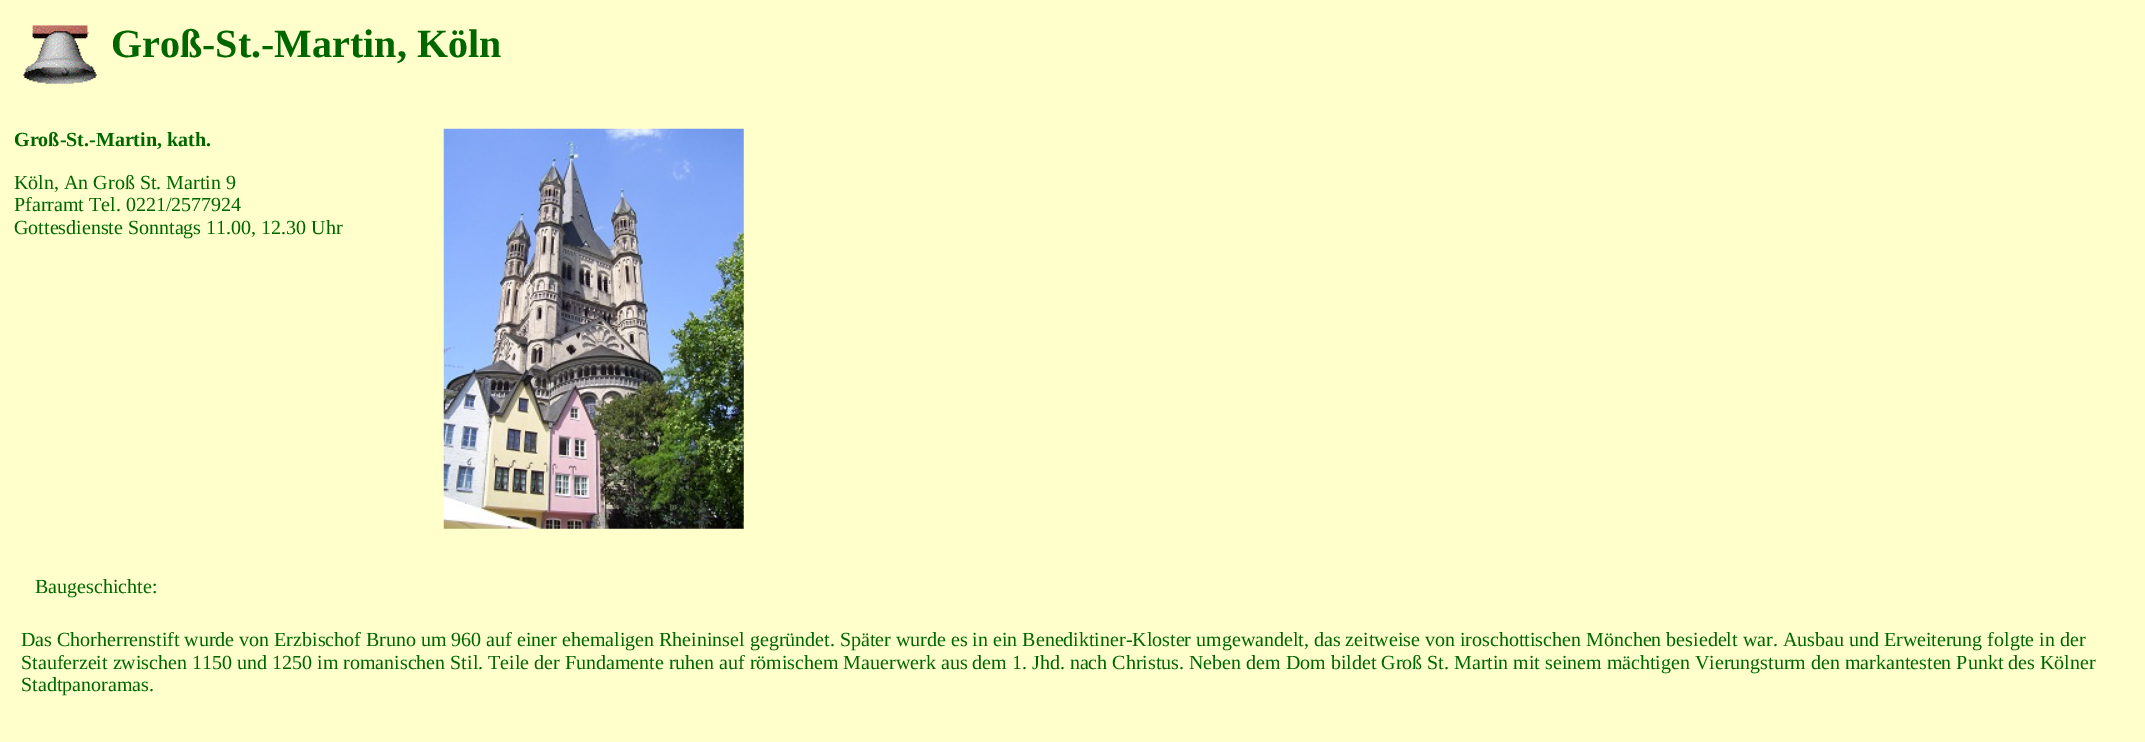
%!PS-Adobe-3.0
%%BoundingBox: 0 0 2145 742
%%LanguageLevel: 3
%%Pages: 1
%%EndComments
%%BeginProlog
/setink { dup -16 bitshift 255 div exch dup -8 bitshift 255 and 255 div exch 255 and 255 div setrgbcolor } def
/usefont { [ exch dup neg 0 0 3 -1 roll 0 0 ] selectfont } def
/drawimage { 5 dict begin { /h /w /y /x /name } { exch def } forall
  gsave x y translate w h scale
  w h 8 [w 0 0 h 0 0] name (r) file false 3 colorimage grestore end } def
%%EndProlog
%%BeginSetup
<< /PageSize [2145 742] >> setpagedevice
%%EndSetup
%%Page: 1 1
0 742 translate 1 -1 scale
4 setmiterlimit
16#FFFFCC setink
0 0 2145 742 rectfill
(img1.raw) 23 25 74 59 drawimage
/LiberationSerif-Bold 40 usefont
16#006600 setink
111 57 moveto (Groß-St.-Martin, Köln) show
/LiberationSerif-Bold 20 usefont
14 146 moveto (Groß-St.-Martin, kath.) show
/LiberationSerif-Regular 20 usefont
[
    [(Köln, An Groß St. Martin 9) 14 189]
    [(Pfarramt Tel. 0221/2577924) 14 211]
    [(Gottesdienste Sonntags 11.00, 12.30 Uhr) 14 234]
] { aload pop moveto show } forall
(img2.raw) 443 128 301 401 drawimage
[
    [(Baugeschichte:) 35 593]
    [(Das Chorherrenstift wurde von Erzbischof Bruno um 960 auf einer ehemaligen Rheininsel gegründet. Später wurde es in ein Benediktiner-Kloster umgewandelt, das zeitweise von iroschottischen Mönchen besiedelt war. Ausbau und Erweiterung folgte in der) 21 646]
    [(Stauferzeit zwischen 1150 und 1250 im romanischen Stil. Teile der Fundamente ruhen auf römischem Mauerwerk aus dem 1. Jhd. nach Christus. Neben dem Dom bildet Groß St. Martin mit seinem mächtigen Vierungsturm den markantesten Punkt des Kölner) 21 669]
    [(Stadtpanoramas.) 21 691]
] { aload pop moveto show } forall
showpage
%%EOF
